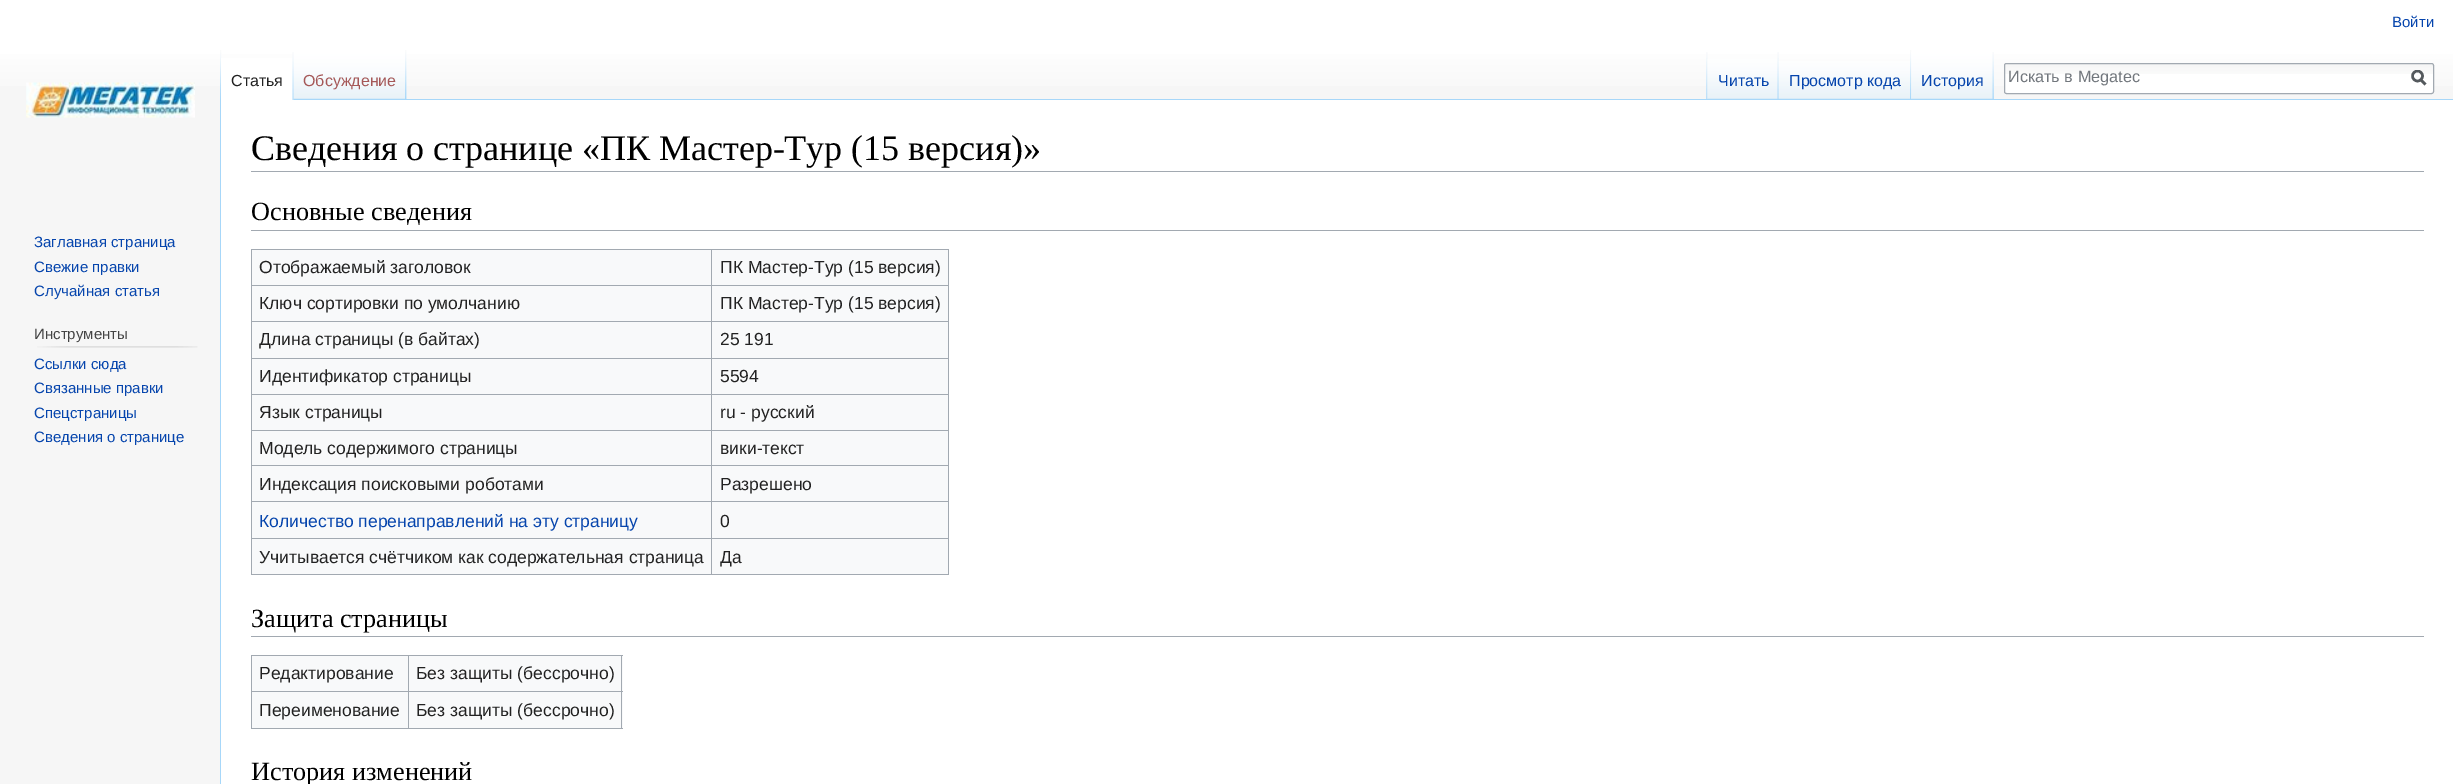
%!PS-Adobe-3.0
%%BoundingBox: 0 0 2453 784
%%LanguageLevel: 3
%%Pages: 1
%%EndComments
%%BeginProlog
/setink { dup -16 bitshift 255 div exch dup -8 bitshift 255 and 255 div exch 255 and 255 div setrgbcolor } def
/usefont { [ exch dup neg 0 0 3 -1 roll 0 0 ] selectfont } def
/disc { newpath 0 360 arc closepath } def
/rrect { 5 dict begin { /r /h /w /y /x } { exch def } forall
  x r add y moveto x w add y 2 copy h add r arct x w add y h add x 1 index r arct
  x y h add x y r arct x y 2 copy exch w add exch r arct closepath end } def
/drawimage { 5 dict begin { /h /w /y /x /name } { exch def } forall
  gsave x y translate w h scale
  w h 8 [w 0 0 h 0 0] name (r) file false 3 colorimage grestore end } def
%%EndProlog
%%BeginSetup
<< /PageSize [2453 784] >> setpagedevice
%%EndSetup
%%Page: 1 1
0 784 translate 1 -1 scale
4 setmiterlimit
16#F6F6F6 setink
0 0 2453 784 rectfill
gsave 0 0 moveto 2453 0 lineto 2453 86 lineto 0 86 lineto closepath clip newpath
<< /ShadingType 2 /ColorSpace /DeviceRGB /Coords [1227 0 1227 100] /Extend [true true] /Function << /FunctionType 3 /Domain [0 1] /Functions [<< /FunctionType 2 /Domain [0 1] /C0 [1 1 1] /C1 [1 1 1] /N 1 >> << /FunctionType 2 /Domain [0 1] /C0 [1 1 1] /C1 [0.965 0.965 0.965] /N 1 >>] /Bounds [0.5] /Encode [0 1 0 1] >> >> shfill grestore
/LiberationSans-Regular 15 usefont
16#0645AD setink
2392 27 moveto (Войти) show
(img1.raw) 220 50 2 49 drawimage
(img2.raw) 406 50 1 49 drawimage
16#FFFFFF setink
221 58 73 42 rectfill
(img3.raw) 292 52 2 48 drawimage
/LiberationSans-Regular 16 usefont
16#222222 setink
231 86 moveto (Статья) show
(img4.raw) 293 50 113 50 drawimage
(img5.raw) 405 50 2 49 drawimage
16#A55858 setink
303 86 moveto (Обсуждение) show
(img6.raw) 1706 52 2 47 drawimage
(img7.raw) 1993 52 1 47 drawimage
(img8.raw) 1707 59 72 40 drawimage
(img9.raw) 1777 52 2 47 drawimage
16#0645AD setink
1718 86 moveto (Читать) show
(img10.raw) 1778 61 134 38 drawimage
(img11.raw) 1910 50 2 49 drawimage
1789 86 moveto (Просмотр кода) show
(img12.raw) 1911 52 83 47 drawimage
(img13.raw) 1992 52 2 47 drawimage
1921 86 moveto (История) show
16#FFFFFF setink
2004 63 430 31 2.5 rrect fill
(img14.raw) 2004 64 430 10 drawimage
16#A2A9B1 setink
2004.5 63.5 429 30 2 rrect stroke
/LiberationSans-Regular 16.25 usefont
16#72777D setink
2008 82 moveto (Искать в Megatec) show
16#54595D setink
2.5 setlinewidth
2425.5 84.5 moveto 2420.5 79.5 lineto stroke
gsave
2411 70 15 16 rectclip
2417.5 76 5 disc stroke
grestore
(img15.raw) 26 82 169 36 drawimage
/LiberationSans-Regular 15 usefont
16#0645AD setink
[
    [(Заглавная страница) 34 247]
    [(Свежие правки) 34 272]
    [(Случайная статья) 34 296]
] { aload pop moveto show } forall
16#444444 setink
34 339 moveto (Инструменты) show
(img16.raw) 37 346 161 2 drawimage
16#0645AD setink
[
    [(Ссылки сюда) 34 369]
    [(Связанные правки) 34 393]
    [(Спецстраницы) 34 418]
    [(Сведения о странице) 34 442]
] { aload pop moveto show } forall
[
    [221 100 2232 684 16#FFFFFF]
    [406 99 2047 1 16#A7D7F9]
    [220 99 1 685 16#A7D7F9]
    [251 171 2173 1 16#A2A9B1]
] { aload pop setink rectfill } forall
/LiberationSerif-Regular 36 usefont
16#000000 setink
251 160 moveto (Сведения о странице «ПК Мастер-Тур \(15 версия\)») show
16#A2A9B1 setink
251 230 2173 1 rectfill
/LiberationSerif-Regular 26.25 usefont
16#000000 setink
251 220 moveto (Основные сведения) show
[
    [252 250 696 324 16#F8F9FA]
    [251 249 698 1 16#A2A9B1]
    [948 249 1 326 16#A2A9B1]
    [251 574 698 1 16#A2A9B1]
    [251 249 1 326 16#A2A9B1]
] { aload pop setink rectfill } forall
/LiberationSans-Regular 17.5 usefont
16#222222 setink
259 273 moveto (Отображаемый заголовок) show
[
    [711 285 238 1 16#A2A9B1]
    [711 321 238 1 16#A2A9B1]
    [711 358 238 1 16#A2A9B1]
    [711 394 238 1 16#A2A9B1]
    [711 430 238 1 16#A2A9B1]
    [711 465 238 1 16#A2A9B1]
    [711 501 238 1 16#A2A9B1]
    [711 538 238 1 16#A2A9B1]
    [711 538 1 37 16#A2A9B1]
    [251 538 462 1 16#A2A9B1]
    [711 501 1 38 16#A2A9B1]
    [251 501 462 1 16#A2A9B1]
    [711 465 1 38 16#A2A9B1]
    [251 465 462 1 16#A2A9B1]
    [711 430 1 36 16#A2A9B1]
    [251 430 462 1 16#A2A9B1]
    [711 394 1 37 16#A2A9B1]
    [251 394 462 1 16#A2A9B1]
    [711 358 1 37 16#A2A9B1]
    [251 358 462 1 16#A2A9B1]
    [711 321 1 38 16#A2A9B1]
    [251 321 462 1 16#A2A9B1]
    [711 285 1 38 16#A2A9B1]
    [251 285 462 1 16#A2A9B1]
    [711 249 1 37 16#A2A9B1]
] { aload pop setink rectfill } forall
16#222222 setink
[
    [(ПК Мастер-Тур \(15 версия\)) 720 273]
    [(Ключ сортировки по умолчанию) 259 309]
    [(ПК Мастер-Тур \(15 версия\)) 720 309]
    [(Длина страницы \(в байтах\)) 259 345]
    [(25 191) 720 345]
    [(Идентификатор страницы) 259 382]
    [(5594) 720 382]
    [(Язык страницы) 259 418]
    [(ru - русский) 720 418]
    [(Модель содержимого страницы) 259 454]
    [(вики-текст) 720 454]
    [(Индексация поисковыми роботами) 259 490]
    [(Разрешено) 720 490]
] { aload pop moveto show } forall
16#0645AD setink
259 527 moveto (Количество перенаправлений на эту страницу) show
16#222222 setink
[
    [(0) 720 527]
    [(Учитывается счётчиком как содержательная страница) 259 563]
    [(Да) 720 563]
] { aload pop moveto show } forall
16#A2A9B1 setink
251 636 2173 1 rectfill
/LiberationSerif-Regular 26.25 usefont
16#000000 setink
251 627 moveto (Защита страницы) show
[
    [252 656 371 72 16#F8F9FA]
    [251 655 372 1 16#A2A9B1]
    [621 655 1 74 16#A2A9B1]
    [251 728 372 1 16#A2A9B1]
    [251 655 1 74 16#A2A9B1]
] { aload pop setink rectfill } forall
/LiberationSans-Regular 17.5 usefont
16#222222 setink
259 679 moveto (Редактирование) show
[
    [408 691 215 1 16#A2A9B1]
    [408 691 1 38 16#A2A9B1]
    [251 691 158 1 16#A2A9B1]
    [408 655 1 38 16#A2A9B1]
] { aload pop setink rectfill } forall
16#222222 setink
[
    [(Без защиты \(бессрочно\)) 416 679]
    [(Переименование) 259 716]
    [(Без защиты \(бессрочно\)) 416 716]
] { aload pop moveto show } forall
/LiberationSerif-Regular 26.25 usefont
16#000000 setink
251 780 moveto (История изменений) show
showpage
%%EOF
